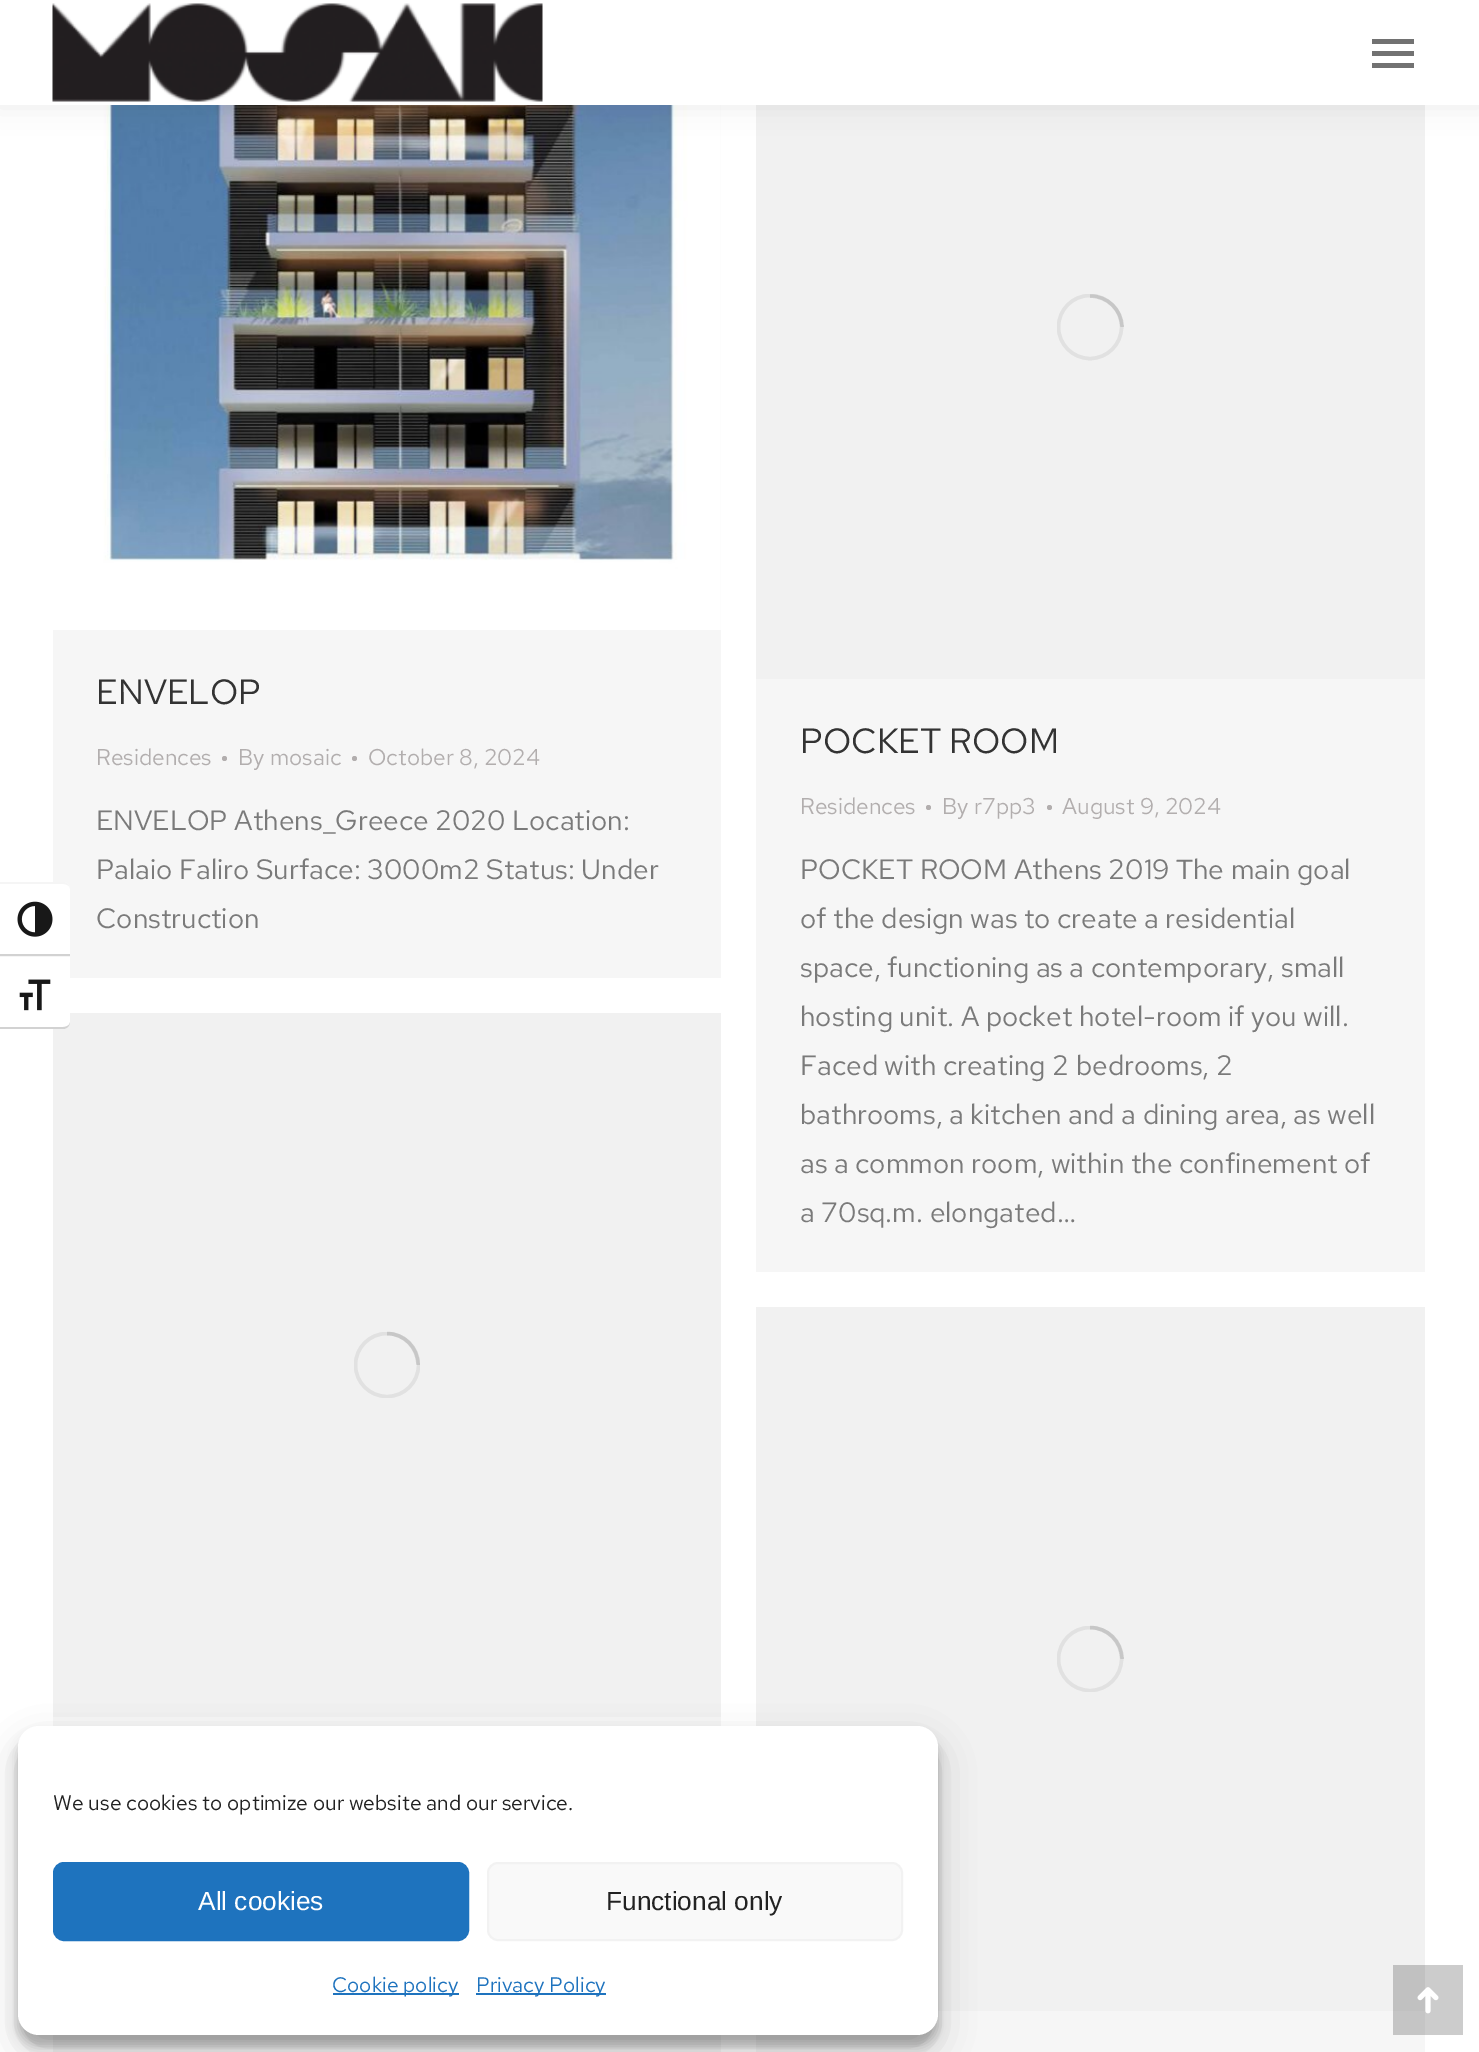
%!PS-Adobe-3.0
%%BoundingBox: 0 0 1479 2052
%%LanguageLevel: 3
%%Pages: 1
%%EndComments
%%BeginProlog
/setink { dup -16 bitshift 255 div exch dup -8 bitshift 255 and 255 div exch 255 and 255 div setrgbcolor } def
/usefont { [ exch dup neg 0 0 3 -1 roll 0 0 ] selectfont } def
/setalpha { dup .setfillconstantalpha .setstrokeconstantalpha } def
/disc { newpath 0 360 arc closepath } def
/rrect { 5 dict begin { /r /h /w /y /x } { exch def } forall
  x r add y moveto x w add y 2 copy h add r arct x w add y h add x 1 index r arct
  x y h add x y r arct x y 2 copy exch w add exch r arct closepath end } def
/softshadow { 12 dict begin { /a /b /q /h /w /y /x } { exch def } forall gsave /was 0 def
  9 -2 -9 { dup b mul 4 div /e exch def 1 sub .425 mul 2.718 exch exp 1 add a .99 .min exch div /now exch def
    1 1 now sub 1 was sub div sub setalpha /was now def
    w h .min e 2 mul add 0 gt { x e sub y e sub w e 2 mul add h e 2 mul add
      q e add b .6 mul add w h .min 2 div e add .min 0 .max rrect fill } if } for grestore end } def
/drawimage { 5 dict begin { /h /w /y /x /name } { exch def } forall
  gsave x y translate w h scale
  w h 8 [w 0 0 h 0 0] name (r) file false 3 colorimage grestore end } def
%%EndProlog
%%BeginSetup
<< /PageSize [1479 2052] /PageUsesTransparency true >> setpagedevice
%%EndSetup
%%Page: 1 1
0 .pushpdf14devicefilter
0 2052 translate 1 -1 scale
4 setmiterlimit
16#FFFFFF setink
0 0 1479 2052 rectfill
16#F6F6F6 setink
53 105 668 873 rectfill
16#FFFFFF setink
0 882 moveto 63 882 lineto 67 882 70 885 70 889 curveto 70 956 lineto 0 956 lineto closepath fill
16#F5F5F5 setink
0 882 moveto 0 884 lineto 63 884 lineto 67 884 70 886 70 889 curveto 70 885 67 882 63 882 curveto closepath fill
16#D2D2D2 setink
0 954 70 2 rectfill
(img1.raw) 17 901 36 36 drawimage
16#F1F1F1 setink
53 1013 668 704 rectfill
16#FFFFFF setink
0 956 moveto 70 956 lineto 70 1022 lineto 70 1026 67 1029 63 1029 curveto 0 1029 lineto closepath fill
16#F5F5F5 setink
0 956 70 1 rectfill
16#D2D2D2 setink
0 1027 moveto 0 1029 lineto 63 1029 lineto 67 1029 70 1026 70 1022 curveto 70 1025 67 1027 63 1027 curveto closepath fill
(img2.raw) 19 979 32 32 drawimage
16#CCCCCC setink
1425 1965 38 70 rectfill
(img4.raw) 53 105 668 525 drawimage
16#F1F1F1 setink
756 105 669 574 rectfill
16#000000 setink
-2 -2 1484 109 0 13 0.07 softshadow
16#FFFFFF setink
0 0 1479 105 rectfill
(img3.raw) 52 3 491 99 drawimage
[
    [1372 39 42 5 16#727272]
    [1372 51 42 5 16#727272]
    [1372 63 42 5 16#727272]
] { aload pop setink rectfill } forall
/RedHatText-Regular 35 usefont
16#333333 setink
96 704 moveto (ENVELOP) show
/RedHatText-Regular 22.75 usefont
16#B2AEAE setink
96 765 moveto (Residences) show
224.5 758.5 2.5 disc fill
238 765 moveto (By mosaic) show
354.5 758.5 2.5 disc fill
368 765 moveto (October 8, 2024) show
/RedHatText-Regular 28 usefont
16#7A7A7A setink
[
    [(ENVELOP Athens_Greece 2020 Location:) 96 830]
    [(Palaio Faliro Surface: 3000m2 Status: Under) 96 879]
    [(Construction) 96 928]
] { aload pop moveto show } forall
16#F6F6F6 setink
756 679 669 593 rectfill
gsave
1057 294 67 67 rectclip
16#E1E1E1 setink
3.5 setlinewidth
1090 327 31.5 disc stroke
grestore
0.25 setalpha
16#7A7A7A setink
3.5 setlinewidth
1122 327 moveto 1122 310 1107.5 296 1090 296 curveto stroke
/RedHatText-Regular 35 usefont
1 setalpha
16#333333 setink
800 753 moveto (POCKET ROOM) show
/RedHatText-Regular 22.75 usefont
16#B2AEAE setink
800 814 moveto (Residences) show
928.5 807.5 2.5 disc fill
942 814 moveto (By r7pp3) show
1049.5 807.5 2.5 disc fill
1062 814 moveto (August 9, 2024) show
/RedHatText-Regular 28 usefont
16#7A7A7A setink
800 879 moveto (POCKET ROOM Athens 2019) show
/LiberationSans-Regular 28 usefont
1176 879 moveto (Τ) show
/RedHatText-Regular 28 usefont
[
    [(he main goal) 1193 879]
    [(of the design was to create a residential) 800 928]
    [(space, functioning as a contemporary, small) 800 977]
    [(hosting unit. A pocket hotel-room if you will.) 800 1026]
    [(Faced with creating 2 bedrooms, 2) 800 1075]
    [(bathrooms, a kitchen and a dining area, as well) 800 1124]
    [(as a common room, within the confinement of) 800 1173]
    [(a 70sq.m. elongated…) 800 1222]
] { aload pop moveto show } forall
16#F6F6F6 setink
53 1717 668 335 rectfill
gsave
354 1332 66 66 rectclip
16#E1E1E1 setink
387 1365 31.5 disc stroke
grestore
0.25 setalpha
16#7A7A7A setink
418 1365 moveto 418 1347.5 404 1333.5 387 1333.5 curveto stroke
1 setalpha
[
    [756 2011 669 41 16#F6F6F6]
    [1393 2011 32 24 16#C5C5C5]
    [756 1307 669 704 16#F1F1F1]
    [1393 1965 32 46 16#C1C1C1]
] { aload pop setink rectfill } forall
gsave
1057 1626 67 66 rectclip
16#E1E1E1 setink
1090 1659 31.5 disc stroke
grestore
0.25 setalpha
16#7A7A7A setink
1122 1659 moveto 1122 1641.5 1107.5 1627.5 1090 1627.5 curveto stroke
1 setalpha
(img5.raw) 1417 1987 22 27 drawimage
16#000000 setink
18 1736 920 310 21 5 0.23 softshadow
18 1743 920 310 21 17.5 0.19 softshadow
16#FFFFFF setink
18 1726 920 309 21 rrect fill
/RedHatText-Regular 21 usefont
16#222222 setink
53 1810 moveto (We use cookies to optimize our website and our service.) show
16#1E73BE setink
54 1863 414 77 10 rrect gsave fill grestore
2 setlinewidth
stroke
/LiberationSans-Regular 26.25 usefont
16#FFFFFF setink
198 1910 moveto (All cookies) show
16#F9F9F9 setink
488 1863 414 77 10 rrect gsave fill grestore
16#F2F2F2 setink
stroke
16#222222 setink
606 1910 moveto (Functional only) show
16#1E73BE setink
333 1993 126 2 rectfill
/RedHatText-Regular 21 usefont
332 1992 moveto (Cookie policy) show
476 1993 130 2 rectfill
476 1992 moveto (Privacy Policy) show
.poppdf14devicefilter showpage
%%EOF
